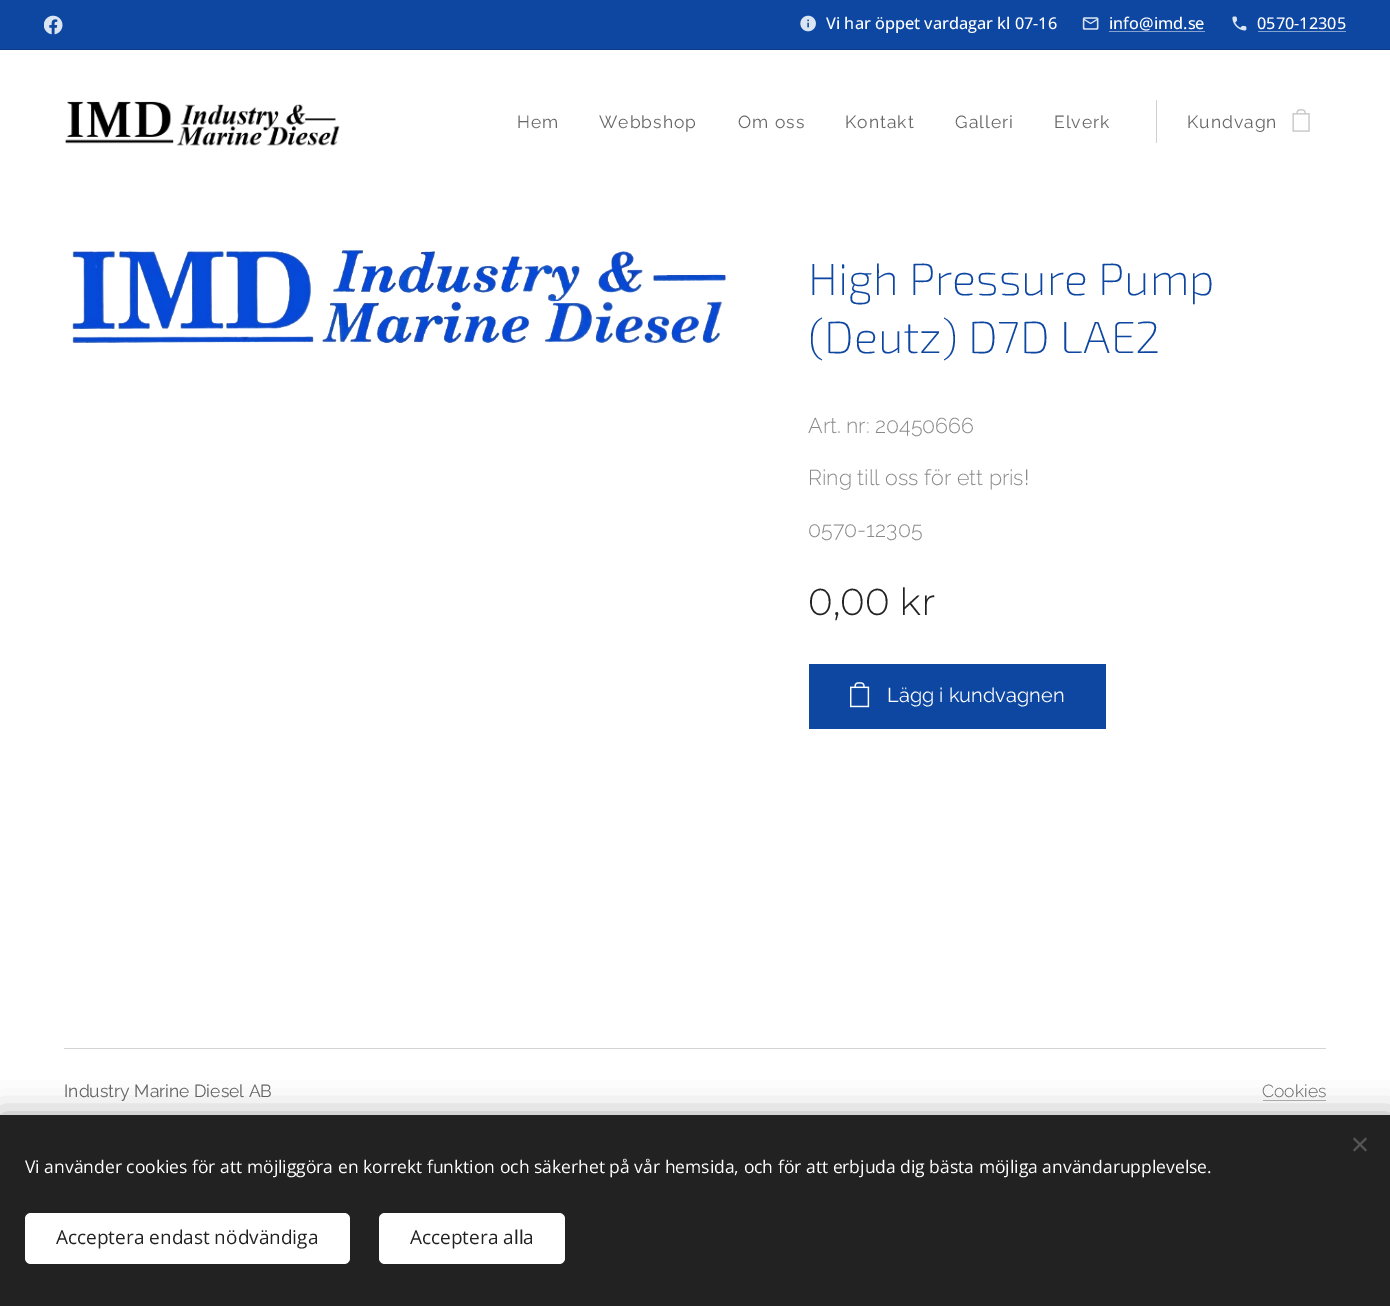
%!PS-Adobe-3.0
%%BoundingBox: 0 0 1390 1306
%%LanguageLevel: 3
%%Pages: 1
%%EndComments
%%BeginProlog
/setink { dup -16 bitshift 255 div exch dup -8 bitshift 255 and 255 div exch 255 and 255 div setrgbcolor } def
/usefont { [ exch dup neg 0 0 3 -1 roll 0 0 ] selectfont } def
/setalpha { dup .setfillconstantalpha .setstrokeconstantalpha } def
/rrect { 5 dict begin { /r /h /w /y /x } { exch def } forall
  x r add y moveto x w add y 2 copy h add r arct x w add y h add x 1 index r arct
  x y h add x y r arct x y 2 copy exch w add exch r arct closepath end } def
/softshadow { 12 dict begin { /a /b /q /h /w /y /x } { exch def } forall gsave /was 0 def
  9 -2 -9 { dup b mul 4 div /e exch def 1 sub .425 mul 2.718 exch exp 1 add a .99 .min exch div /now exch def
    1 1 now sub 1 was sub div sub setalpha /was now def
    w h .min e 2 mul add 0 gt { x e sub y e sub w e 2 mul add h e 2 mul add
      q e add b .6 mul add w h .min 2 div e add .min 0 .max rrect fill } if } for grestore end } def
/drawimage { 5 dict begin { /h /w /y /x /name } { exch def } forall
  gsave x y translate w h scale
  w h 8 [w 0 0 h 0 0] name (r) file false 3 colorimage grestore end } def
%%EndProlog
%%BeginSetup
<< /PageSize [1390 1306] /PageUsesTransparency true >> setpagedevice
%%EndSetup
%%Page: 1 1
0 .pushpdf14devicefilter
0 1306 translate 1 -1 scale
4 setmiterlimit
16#FFFFFF setink
0 0 1390 1306 rectfill
16#0D47A1 setink
0 0 1390 49 rectfill
(img1.raw) 44 15 19 20 drawimage
(img2.raw) 800 15 16 17 drawimage
/OpenSans-Medium 16.25 usefont
16#FFFFFF setink
826 29 moveto (Vi har öppet vardagar kl 07-16) show
(img3.raw) 1082 17 17 13 drawimage
1109 29 moveto (info@imd.se) show
16#86A3D0 setink
1109 31 96 1 rectfill
(img4.raw) 1232 16 15 15 drawimage
16#FFFFFF setink
1257 29 moveto (0570-12305) show
16#86A3D0 setink
1258 31 88 1 rectfill
16#0B3C89 setink
0 49 1390 1 rectfill
(img5.raw) 65 101 275 45 drawimage
/Raleway-Regular 17.5 usefont
16#666666 setink
517 128 moveto 1 0 (Hem) ashow
599 128 moveto 1 0 (Webbshop) ashow
738 128 moveto 1 0 (Om oss) ashow
845 128 moveto 1 0 (Kontakt) ashow
955 128 moveto 1 0 (Galleri) ashow
1054 128 moveto 1 0 (Elverk) ashow
16#D1D1D1 setink
1156 100 1 43 rectfill
16#666666 setink
1187 128 moveto 1 0 (Kundvagn) ashow
(img6.raw) 1292 109 18 23 drawimage
(img7.raw) 72 250 654 94 drawimage
/Exo2-ExtraLight 45 usefont
16#0D47A1 setink
808 295 moveto (High Pressure Pump) show
808 353 moveto (\(Deutz\) D7D LAE2) show
/Raleway-Light 21.5 usefont
16#888888 setink
[
    [(Art. nr: 20450666) 808 433]
    [(Ring till oss för ett pris!) 808 485]
    [(0570-12305) 808 537]
] { aload pop moveto show } forall
/Montserrat-Light 37.5 usefont
16#222222 setink
808 615 moveto (0,00 kr) show
16#0D47A1 setink
809 664 297 65 rectfill
(img8.raw) 850 682 20 26 drawimage
/Raleway-Regular 20 usefont
16#FFFFFF setink
887 702 moveto (Lägg i kundvagnen) show
16#D4D4D4 setink
64 1048 1262 1 rectfill
/Raleway-Regular 17.5 usefont
16#666666 setink
64 1097 moveto (Industry Marine Diesel AB) show
/Raleway-Light 17.5 usefont
1262 1097 moveto (Cookies) show
16#B3B3B3 setink
1263 1100 63 1 rectfill
16#000000 setink
0 1115 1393 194 0 15.5 0.33 softshadow
16#222222 setink
0 1115 1390 191 rectfill
16#555555 setink
1353 1150 moveto 1365.5 1137.5 lineto 1367 1139 lineto 1354.5 1151.5 lineto closepath fill
1354.5 1137.5 moveto 1367 1150 lineto 1365.5 1151.5 lineto 1353 1139 lineto closepath fill
/OpenSans-Regular 17.5 usefont
16#FFFFFF setink
25 1173 moveto (Vi använder cookies för att möjliggöra en korrekt funktion och säkerhet på vår hemsida, och för att erbjuda dig bästa möjliga användarupplevelse.) show
25 1213 325 51 6 rrect fill
/OpenSans-Regular 19 usefont
16#222222 setink
56 1244 moveto (Acceptera endast nödvändiga) show
16#FFFFFF setink
379 1213 186 51 6 rrect fill
16#222222 setink
410 1244 moveto (Acceptera alla) show
.poppdf14devicefilter showpage
%%EOF
